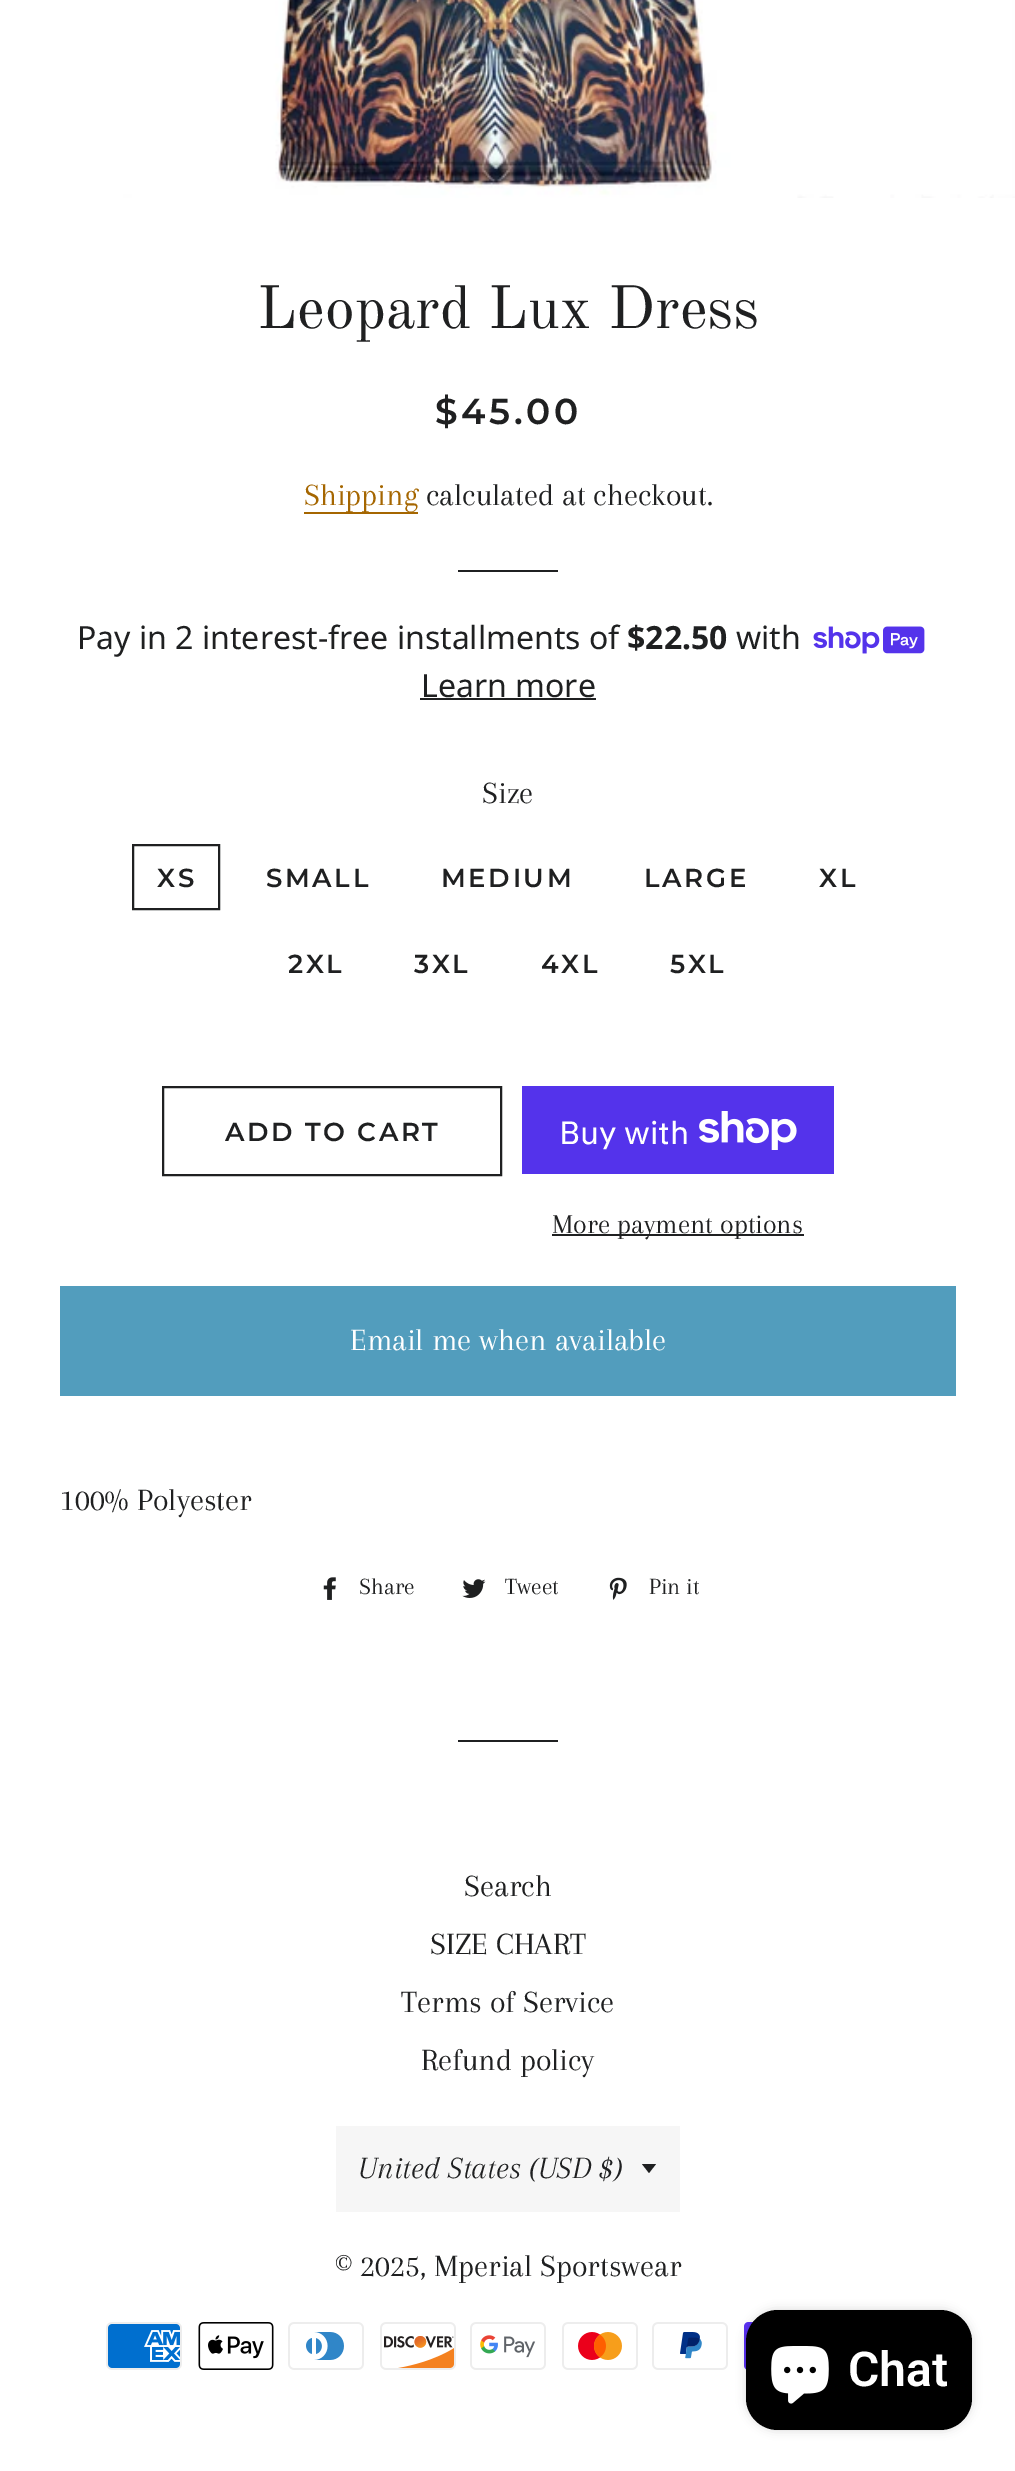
%!PS-Adobe-3.0
%%BoundingBox: 0 0 1015 2471
%%LanguageLevel: 3
%%Pages: 1
%%EndComments
%%BeginProlog
/setink { dup -16 bitshift 255 div exch dup -8 bitshift 255 and 255 div exch 255 and 255 div setrgbcolor } def
/usefont { [ exch dup neg 0 0 3 -1 roll 0 0 ] selectfont } def
/setalpha { dup .setfillconstantalpha .setstrokeconstantalpha } def
/rrect { 5 dict begin { /r /h /w /y /x } { exch def } forall
  x r add y moveto x w add y 2 copy h add r arct x w add y h add x 1 index r arct
  x y h add x y r arct x y 2 copy exch w add exch r arct closepath end } def
/softshadow { 12 dict begin { /a /b /q /h /w /y /x } { exch def } forall gsave /was 0 def
  9 -2 -9 { dup b mul 4 div /e exch def 1 sub .425 mul 2.718 exch exp 1 add a .99 .min exch div /now exch def
    1 1 now sub 1 was sub div sub setalpha /was now def
    w h .min e 2 mul add 0 gt { x e sub y e sub w e 2 mul add h e 2 mul add
      q e add b .6 mul add w h .min 2 div e add .min 0 .max rrect fill } if } for grestore end } def
/drawimage { 5 dict begin { /h /w /y /x /name } { exch def } forall
  gsave x y translate w h scale
  w h 8 [w 0 0 h 0 0] name (r) file false 3 colorimage grestore end } def
%%EndProlog
%%BeginSetup
<< /PageSize [1015 2471] /PageUsesTransparency true >> setpagedevice
%%EndSetup
%%Page: 1 1
0 .pushpdf14devicefilter
0 2471 translate 1 -1 scale
4 setmiterlimit
16#FFFFFF setink
0 0 1015 2471 rectfill
(img1.raw) 0 0 1015 198 drawimage
/OldStandardTT-Regular 60 usefont
16#1F2021 setink
257 328 moveto (Leopard Lux Dress) show
/Montserrat-SemiBold 36 usefont
435 424 moveto 3.5 0 ($45.00) ashow
16#A56600 setink
304 512 114 2 rectfill
/Arapey-Regular 32 usefont
304 505 moveto (Shipping) show
16#1F2021 setink
426 505 moveto (calculated at checkout.) show
458 570 100 2 rectfill
/NotoSans-Regular 32 usefont
77 649 moveto (Pay in 2 interest-free installments of) show
/NotoSans-Bold 32 usefont
627 649 moveto ($22.50) show
/NotoSans-Regular 32 usefont
736 649 moveto (with) show
(img2.raw) 813 626 112 28 drawimage
421 697 moveto (Learn more) show
420 698 176 2 rectfill
/Arapey-Regular 32 usefont
482 803 moveto (Size) show
2 setlinewidth
133 845 86 64 rectstroke
/Montserrat-SemiBold 26 usefont
157 887 moveto 2.6 0 (XS) ashow
266 887 moveto 2.6 0 (SMALL) ashow
441 887 moveto 2.6 0 (MEDIUM) ashow
644 887 moveto 2.6 0 (LARGE) ashow
819 887 moveto 2.6 0 (XL) ashow
288 973 moveto 2.6 0 (2XL) ashow
414 973 moveto 2.6 0 (3XL) ashow
541 973 moveto 2.6 0 (4XL) ashow
670 973 moveto 2.6 0 (5XL) ashow
163 1087 338 88 rectstroke
225 1141 moveto 2.6 0 (ADD TO CART) ashow
16#5433EB setink
522 1086 312 88 rectfill
/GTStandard-Regular 32 usefont
16#FFFFFF setink
559 1144 moveto (Buy with) show
(img3.raw) 699 1111 98 39 drawimage
16#1F2021 setink
552 1234 252 2 rectfill
/Arapey-Regular 28 usefont
552 1233 moveto (More payment options) show
16#529DBD setink
60 1286 896 110 rectfill
/Arapey-Regular 32 usefont
16#FFFFFF setink
350 1350 moveto (Email me when available) show
16#1F2021 setink
60 1510 moveto (100% Polyester) show
(img4.raw) 323 1577 13 23 drawimage
/Arapey-Regular 24 usefont
359 1594 moveto (Share) show
(img5.raw) 462 1579 24 19 drawimage
505 1594 moveto (Tweet) show
(img6.raw) 609 1577 18 23 drawimage
649 1594 moveto (Pin it) show
458 1740 100 2 rectfill
/Arapey-Regular 32 usefont
[
    [(Search) 464 1896]
    [(SIZE CHART) 430 1954]
    [(Terms of Service) 401 2012]
    [(Refund policy) 421 2070]
] { aload pop moveto show } forall
16#F6F6F6 setink
336 2126 344 86 rectfill
16#1F2021 setink
642 2164 moveto 649 2173 lineto 656 2164 lineto closepath fill
/Arapey-Italic 32 usefont
358 2178 moveto (United States \(USD $\)) show
/Arapey-Regular 32 usefont
335 2276 moveto (© 2025, Mperial Sportswear) show
(img7.raw) 106 2322 76 48 drawimage
(img8.raw) 198 2322 76 48 drawimage
(img9.raw) 288 2322 76 48 drawimage
(img10.raw) 380 2322 76 48 drawimage
(img11.raw) 470 2322 76 48 drawimage
(img12.raw) 562 2322 76 48 drawimage
(img13.raw) 652 2322 76 48 drawimage
(img14.raw) 744 2322 9 48 drawimage
16#000000 setink
746 2310 226 120 32 5 0.15 softshadow
746 2310 226 120 32 rrect fill
(img15.raw) 771 2346 58 58 drawimage
/Roboto-SemiBold 48 usefont
16#FFFFFF setink
848 2386 moveto (Chat) show
.poppdf14devicefilter showpage
%%EOF
